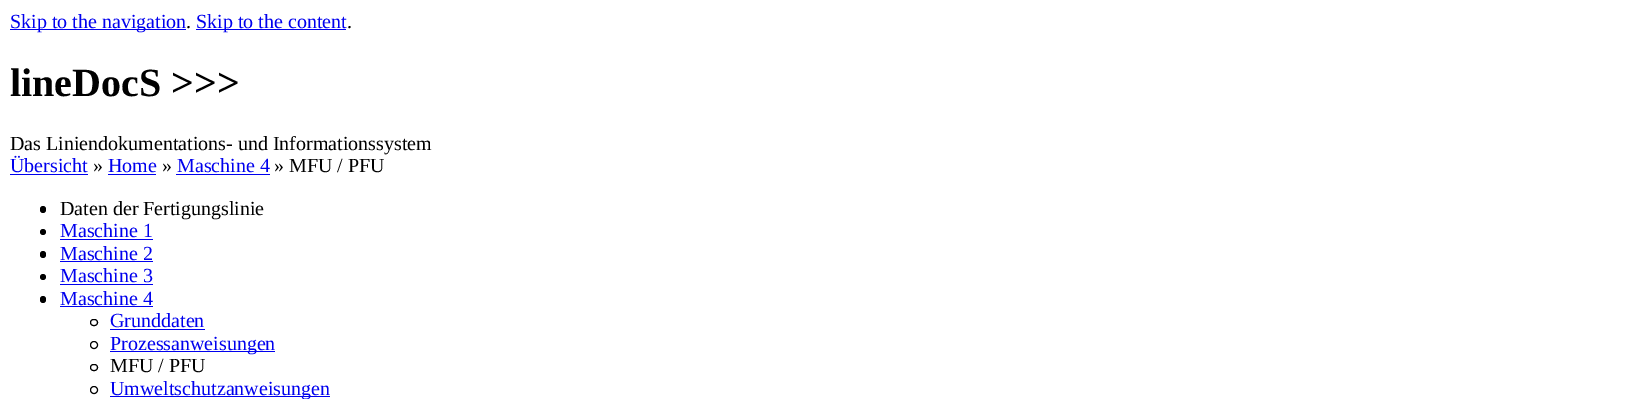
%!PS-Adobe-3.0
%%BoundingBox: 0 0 1644 399
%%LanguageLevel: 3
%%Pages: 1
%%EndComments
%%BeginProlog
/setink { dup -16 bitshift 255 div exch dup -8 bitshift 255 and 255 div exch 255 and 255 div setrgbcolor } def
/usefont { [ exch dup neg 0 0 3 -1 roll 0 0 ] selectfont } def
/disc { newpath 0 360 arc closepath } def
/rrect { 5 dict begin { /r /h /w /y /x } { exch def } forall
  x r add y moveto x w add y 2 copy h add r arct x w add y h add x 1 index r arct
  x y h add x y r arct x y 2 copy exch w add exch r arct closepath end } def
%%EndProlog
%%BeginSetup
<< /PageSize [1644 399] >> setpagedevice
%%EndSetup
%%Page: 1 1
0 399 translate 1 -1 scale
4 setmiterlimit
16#FFFFFF setink
0 0 1644 399 rectfill
16#0000EE setink
10 29 176 1 rectfill
/LiberationSerif-Regular 20 usefont
10 28 moveto (Skip to the navigation) show
16#000000 setink
186 28 moveto (.) show
16#0000EE setink
196 29 150 1 rectfill
196 28 moveto (Skip to the content) show
16#000000 setink
347 28 moveto (.) show
/LiberationSerif-Bold 40 usefont
10 96 moveto (lineDocS >>>) show
/LiberationSerif-Regular 20 usefont
10 150 moveto (Das Liniendokumentations- und Informationssystem) show
16#0000EE setink
10 172 moveto (Übersicht) show
10 174 78 1 rectfill
16#000000 setink
93 172 moveto (») show
16#0000EE setink
108 172 moveto (Home) show
108 174 48 1 rectfill
16#000000 setink
162 172 moveto (») show
16#0000EE setink
177 172 moveto (Maschine 4) show
176 174 94 1 rectfill
16#000000 setink
274 172 moveto (» MFU / PFU) show
40 206 6 7 3 rrect fill
60 215 moveto (Daten der Fertigungslinie) show
43 232 3 disc fill
16#0000EE setink
60 237 moveto (Maschine 1) show
60 239 93 1 rectfill
16#000000 setink
40 251 6 7 3 rrect fill
16#0000EE setink
60 260 moveto (Maschine 2) show
60 261 93 1 rectfill
16#000000 setink
43 277 3 disc fill
16#0000EE setink
60 282 moveto (Maschine 3) show
60 284 93 1 rectfill
16#000000 setink
40 296 6 7 3 rrect fill
16#0000EE setink
60 305 moveto (Maschine 4) show
60 306 93 1 rectfill
16#000000 setink
90.5 319.5 7 6 3 rrect stroke
16#0000EE setink
110 327 moveto (Grunddaten) show
110 329 95 1 rectfill
16#000000 setink
94 345 3.5 disc stroke
16#0000EE setink
110 351 165 1 rectfill
110 350 moveto (Prozessanweisungen) show
16#000000 setink
90.5 364.5 7 6 3 rrect stroke
110 372 moveto (MFU / PFU) show
94 390 3.5 disc stroke
16#0000EE setink
110 396 220 1 rectfill
110 395 moveto (Umweltschutzanweisungen) show
showpage
%%EOF
